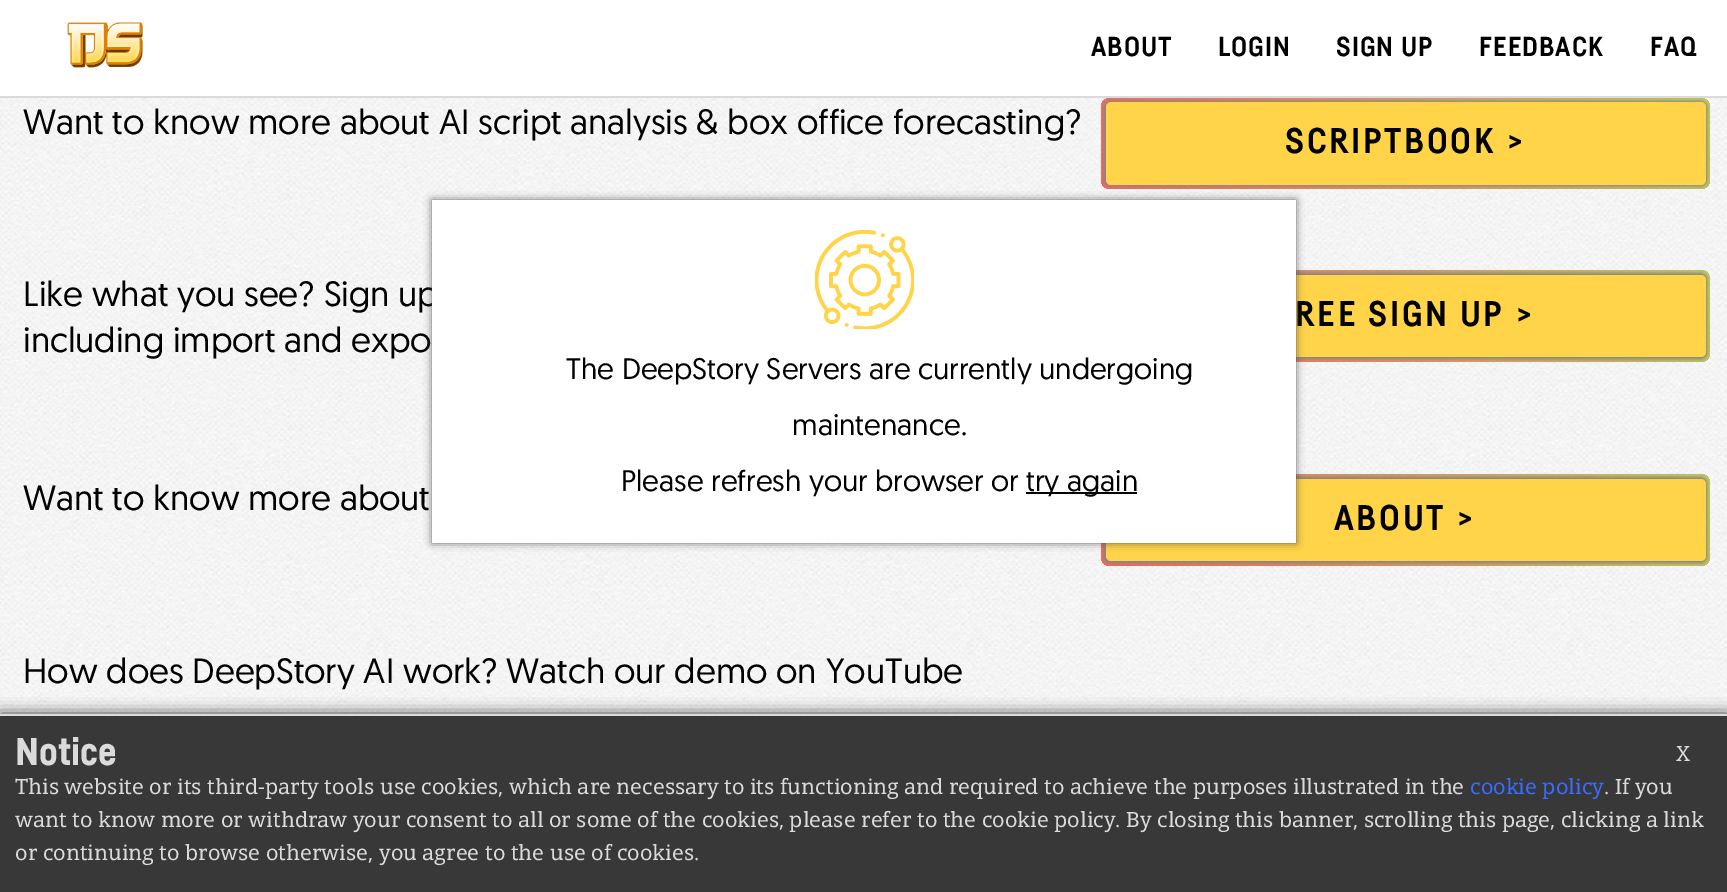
%!PS-Adobe-3.0
%%BoundingBox: 0 0 1727 892
%%LanguageLevel: 3
%%Pages: 1
%%EndComments
%%BeginProlog
/setink { dup -16 bitshift 255 div exch dup -8 bitshift 255 and 255 div exch 255 and 255 div setrgbcolor } def
/usefont { [ exch dup neg 0 0 3 -1 roll 0 0 ] selectfont } def
/setalpha { dup .setfillconstantalpha .setstrokeconstantalpha } def
/rrect { 5 dict begin { /r /h /w /y /x } { exch def } forall
  x r add y moveto x w add y 2 copy h add r arct x w add y h add x 1 index r arct
  x y h add x y r arct x y 2 copy exch w add exch r arct closepath end } def
/softshadow { 12 dict begin { /a /b /q /h /w /y /x } { exch def } forall gsave /was 0 def
  9 -2 -9 { dup b mul 4 div /e exch def 1 sub .425 mul 2.718 exch exp 1 add a .99 .min exch div /now exch def
    1 1 now sub 1 was sub div sub setalpha /was now def
    w h .min e 2 mul add 0 gt { x e sub y e sub w e 2 mul add h e 2 mul add
      q e add b .6 mul add w h .min 2 div e add .min 0 .max rrect fill } if } for grestore end } def
/drawimage { 5 dict begin { /h /w /y /x /name } { exch def } forall
  gsave x y translate w h scale
  w h 8 [w 0 0 h 0 0] name (r) file false 3 colorimage grestore end } def
%%EndProlog
%%BeginSetup
<< /PageSize [1727 892] /PageUsesTransparency true >> setpagedevice
%%EndSetup
%%Page: 1 1
0 .pushpdf14devicefilter
0 892 translate 1 -1 scale
4 setmiterlimit
16#FFFFFF setink
0 0 1727 892 rectfill
(img1.raw) 0 98 1727 616 drawimage
gsave 1101 98 609 91 9 rrect clip newpath
<< /ShadingType 2 /ColorSpace /DeviceRGB /Coords [1270 573 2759 -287] /Extend [true true] /Function << /FunctionType 3 /Domain [0 1] /Functions [<< /FunctionType 2 /Domain [0 1] /C0 [0.949 0.373 0.38] /C1 [0.671 0.949 0.373] /N 1 >> << /FunctionType 2 /Domain [0 1] /C0 [0.671 0.949 0.373] /C1 [0.373 0.949 0.941] /N 1 >>] /Bounds [0.5] /Encode [0 1 0 1] >> >> shfill grestore
16#858585 setink
1104 101 603 85 6 1.5 1 softshadow
16#DBDBDB setink
0 96 1727 2 rectfill
(img2.raw) 67 22 76 46 drawimage
/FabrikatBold-Regular 27 usefont
16#000000 setink
1091 56 moveto 1 0 (ABOUT) ashow
1218 56 moveto 1 0 (LOGIN) ashow
1336 56 moveto 1 0 (SIGN UP) ashow
1479 56 moveto 1 0 (FEEDBACK) ashow
1650 56 moveto 1 0 (FAQ) ashow
/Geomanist-Regular 35.1 usefont
23 134 moveto (Want to know more about AI script analysis & box office forecasting?) show
16#FFD449 setink
1106 102 600 83 5 rrect fill
/FabrikatBold-Regular 35.1 usefont
16#000000 setink
1285 153 moveto 2.6 0 (SCRIPTBOOK >) ashow
/Geomanist-Regular 35.1 usefont
23 306 moveto (Like what you see? Sign up) show
23 352 moveto (including import and expo) show
gsave 1101 270 609 92 9 rrect clip newpath
<< /ShadingType 2 /ColorSpace /DeviceRGB /Coords [1270 746 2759 -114] /Extend [true true] /Function << /FunctionType 3 /Domain [0 1] /Functions [<< /FunctionType 2 /Domain [0 1] /C0 [0.949 0.373 0.38] /C1 [0.671 0.949 0.373] /N 1 >> << /FunctionType 2 /Domain [0 1] /C0 [0.671 0.949 0.373] /C1 [0.373 0.949 0.941] /N 1 >>] /Bounds [0.5] /Encode [0 1 0 1] >> >> shfill grestore
16#858585 setink
1104 273 603 86 6 1.5 1 softshadow
16#FFD449 setink
1106 275 600 82 5 rrect fill
/FabrikatBold-Regular 35.1 usefont
16#000000 setink
1295 326 moveto 2.6 0 (REE SIGN UP >) ashow
gsave 1101 474 609 92 9 rrect clip newpath
<< /ShadingType 2 /ColorSpace /DeviceRGB /Coords [1270 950 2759 90] /Extend [true true] /Function << /FunctionType 3 /Domain [0 1] /Functions [<< /FunctionType 2 /Domain [0 1] /C0 [0.949 0.373 0.38] /C1 [0.671 0.949 0.373] /N 1 >> << /FunctionType 2 /Domain [0 1] /C0 [0.671 0.949 0.373] /C1 [0.373 0.949 0.941] /N 1 >>] /Bounds [0.5] /Encode [0 1 0 1] >> >> shfill grestore
16#858585 setink
1104 477 603 86 6 1.5 1 softshadow
16#FFD449 setink
1106 479 600 82 5 rrect fill
16#444444 setink
432 200 864 343 0 4 0.8 softshadow
16#FFFFFF setink
432 200 864 343 rectfill
(img3.raw) 815 230 99 99 drawimage
/Geomanist-Regular 29.7 usefont
16#000000 setink
[
    [(The DeepStory Servers are currently undergoing) 566 379]
    [(maintenance.) 792 435]
    [(Please refresh your browser or) 621 491]
] { aload pop moveto show } forall
1026 492 111 2 rectfill
1026 491 moveto (try again) show
/Geomanist-Regular 35.1 usefont
23 510 moveto (Want to know more about) show
/FabrikatBold-Regular 35.1 usefont
1334 530 moveto 2.6 0 (ABOUT >) ashow
/Geomanist-Regular 35.1 usefont
23 683 moveto (How does DeepStory AI work? Watch our demo on YouTube) show
0 714 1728 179 0 7.5 0.75 softshadow
16#383838 setink
0 716 1727 176 rectfill
16#DBDBDB setink
0 714 1727 2 rectfill
/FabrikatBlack-Regular 38 usefont
15 765 moveto (Notice) show
/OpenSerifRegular-Regular 21 usefont
1676 761 moveto (X) show
15 794 moveto (This website or its third-party tools use cookies, which are necessary to its functioning and required to achieve the purposes illustrated in the) show
16#396DFF setink
1470 794 moveto (cookie policy) show
16#DBDBDB setink
[
    [(. If you) 1604 794]
    [(want to know more or withdraw your consent to all or some of the cookies, please refer to the cookie policy. By closing this banner, scrolling this page, clicking a link) 15 827]
    [(or continuing to browse otherwise, you agree to the use of cookies.) 15 860]
] { aload pop moveto show } forall
.poppdf14devicefilter showpage
%%EOF
